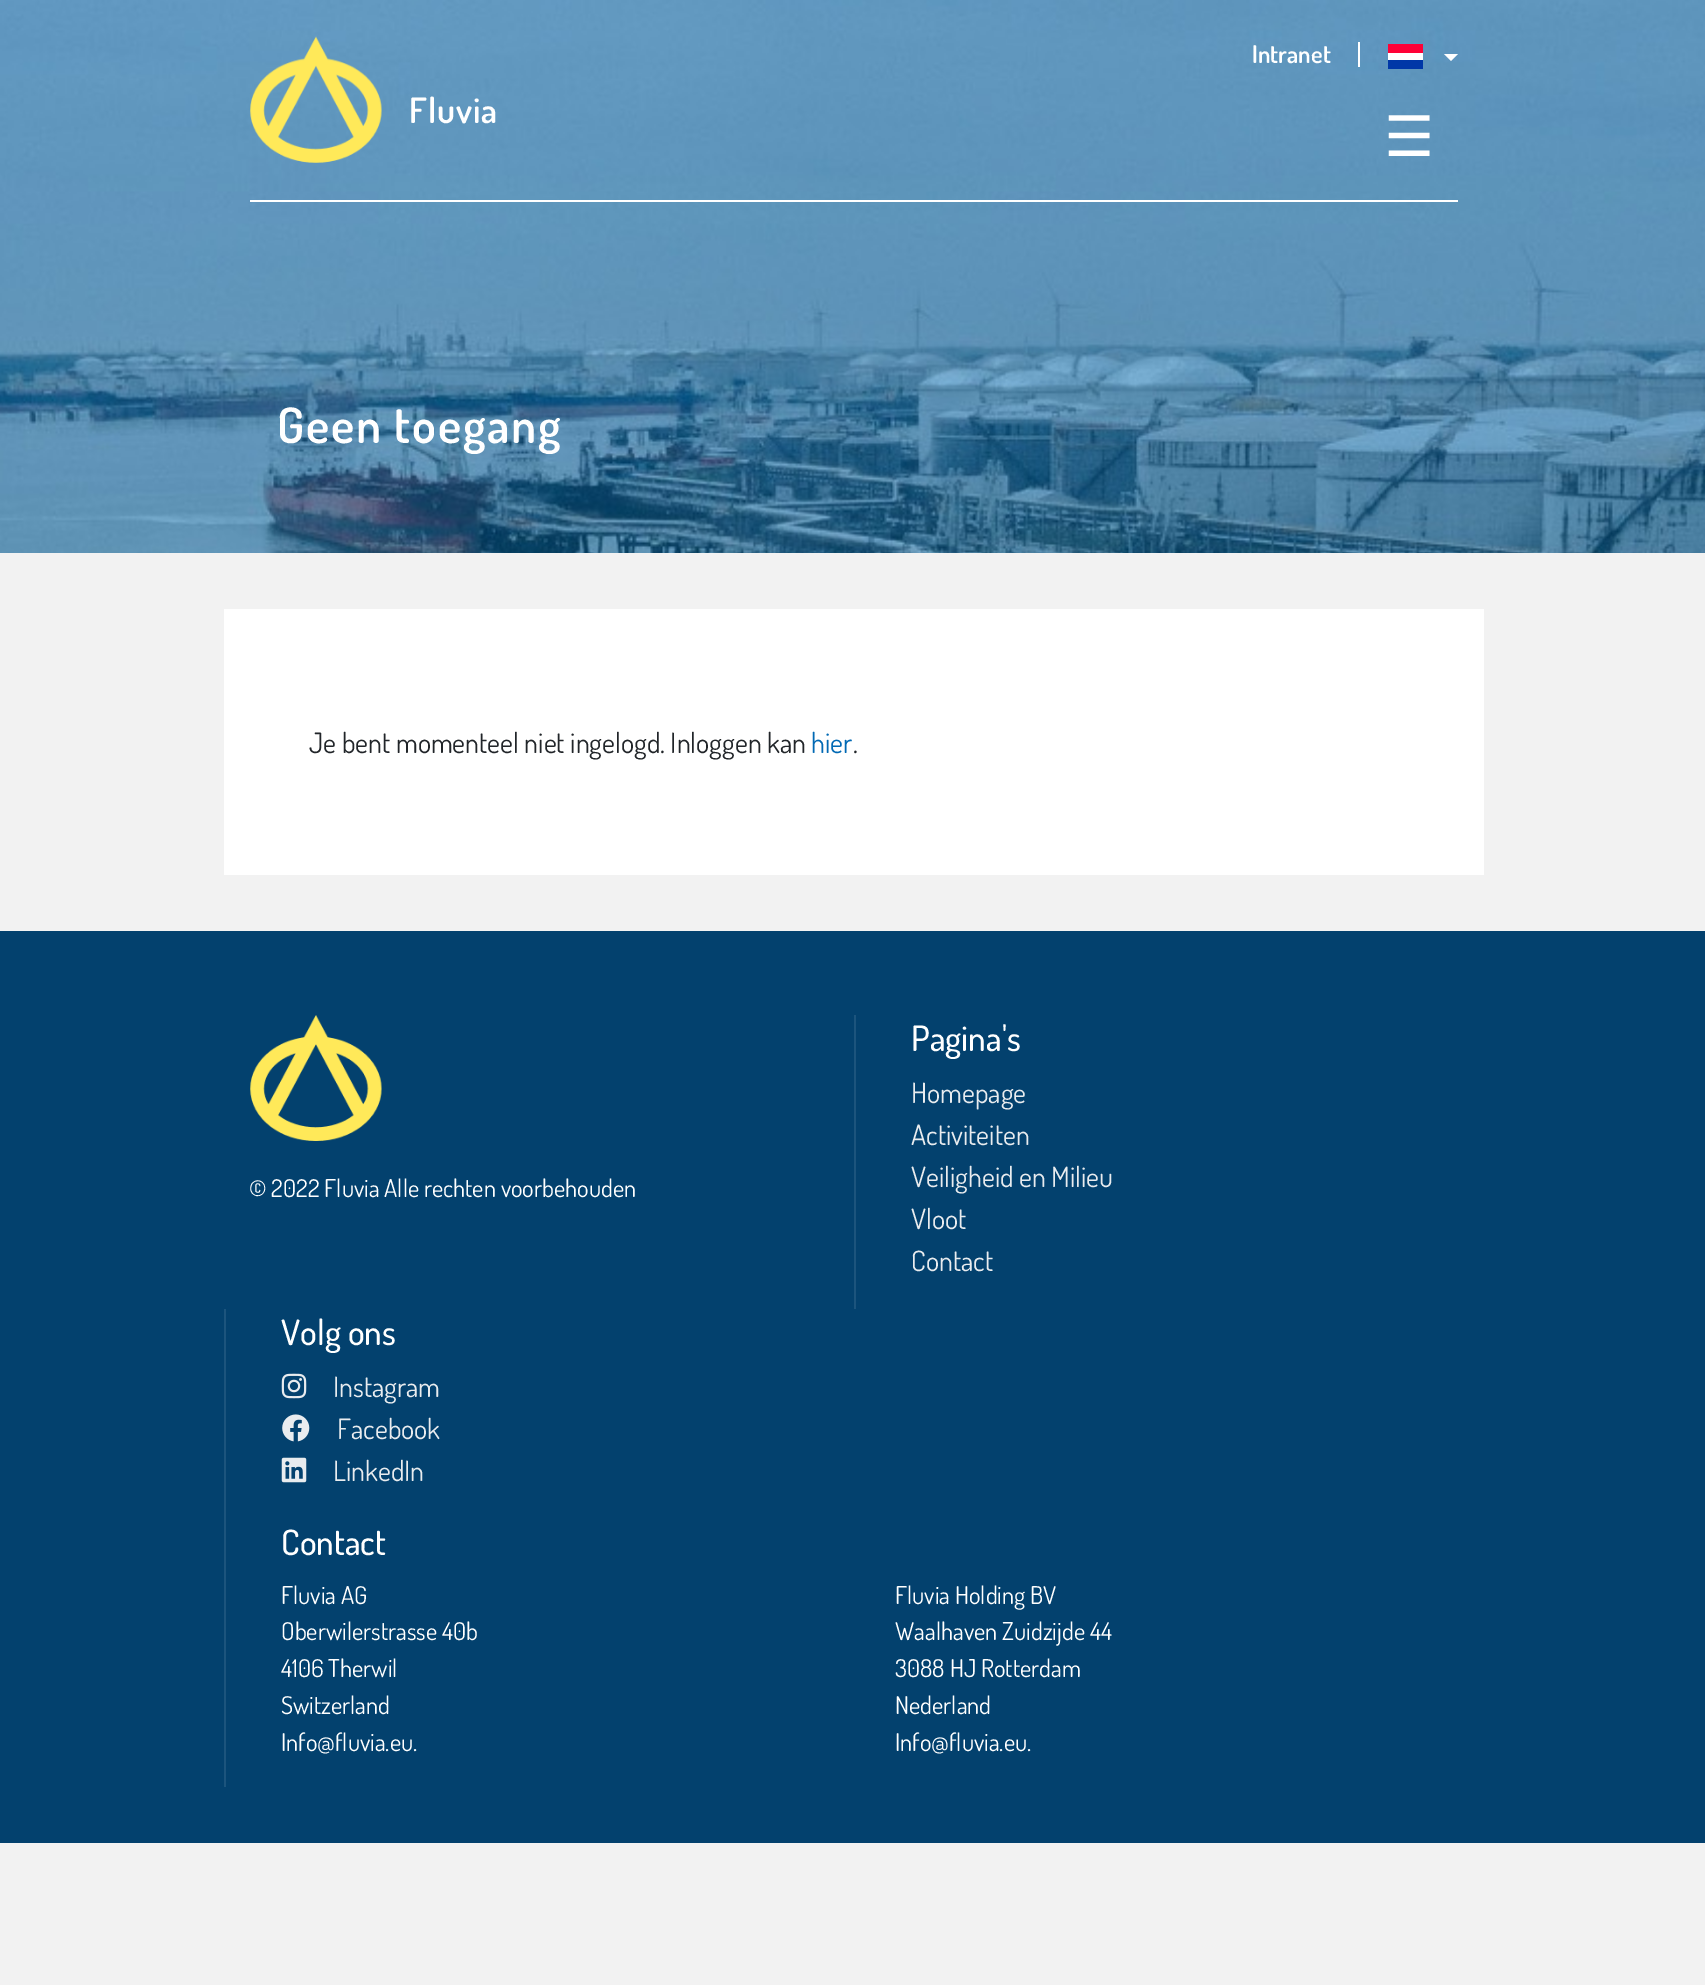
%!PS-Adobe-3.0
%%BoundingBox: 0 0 1705 1985
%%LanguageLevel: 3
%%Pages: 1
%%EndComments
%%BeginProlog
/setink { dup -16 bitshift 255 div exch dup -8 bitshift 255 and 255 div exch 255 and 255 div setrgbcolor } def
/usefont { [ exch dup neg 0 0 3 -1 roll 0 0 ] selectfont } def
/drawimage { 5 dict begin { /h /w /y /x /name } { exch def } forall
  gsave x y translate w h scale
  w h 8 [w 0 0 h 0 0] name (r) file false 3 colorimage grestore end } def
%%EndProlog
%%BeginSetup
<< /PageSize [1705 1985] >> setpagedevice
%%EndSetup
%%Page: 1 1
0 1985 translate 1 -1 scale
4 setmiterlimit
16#F2F2F2 setink
0 0 1705 1985 rectfill
(img2.raw) 0 0 1705 553 drawimage
16#FFFFFF setink
250 200 1208 2 rectfill
(img1.raw) 250 36 132 127 drawimage
/Dosis-SemiBold 35 usefont
409 123 moveto 1 0 (Fluvia) ashow
1358 42 2 25 rectfill
/Dosis-SemiBold 24.5 usefont
1252 63 moveto (Intranet) show
16#FF0137 setink
1388 44 35 9 rectfill
16#FFFFFF setink
1388 53 35 7 rectfill
1444 54 moveto 1458 54 lineto 1451 61 lineto closepath fill
16#0037A7 setink
1388 60 35 9 rectfill
/DejaVuSans-Regular 56 usefont
16#FFFFFF setink
1384 156 moveto (☰) show
/Dosis-SemiBold 49 usefont
277 443 moveto 1.75 0 (Geen toegang) ashow
224 609 1260 266 rectfill
/Dosis-Regular 28 usefont
16#212529 setink
309 753 moveto (Je bent momenteel niet ingelogd. Inloggen kan) show
16#0169B4 setink
811 753 moveto (hier) show
16#212529 setink
853 753 moveto (.) show
16#03416E setink
0 931 1705 912 rectfill
(img3.raw) 250 1015 132 126 drawimage
/Dosis-Regular 24.5 usefont
16#FFFFFF setink
249 1197 moveto (© 2022 Fluvia Alle rechten voorbehouden) show
16#1C547D setink
854 1015 2 294 rectfill
/Dosis-Medium 35 usefont
16#FFFFFF setink
911 1051 moveto (Pagina's) show
/Dosis-Regular 28 usefont
16#E9ECEF setink
[
    [(Homepage) 911 1103]
    [(Activiteiten) 911 1145]
    [(Veiligheid en Milieu) 911 1187]
    [(Vloot) 911 1229]
    [(Contact) 911 1271]
] { aload pop moveto show } forall
16#1C547D setink
224 1309 2 478 rectfill
/Dosis-Medium 35 usefont
16#FFFFFF setink
281 1345 moveto (Volg ons) show
(img4.raw) 281 1373 26 26 drawimage
/Dosis-Regular 28 usefont
16#E9ECEF setink
333 1397 moveto (Instagram) show
(img5.raw) 282 1414 28 28 drawimage
337 1439 moveto (Facebook) show
(img6.raw) 281 1457 26 26 drawimage
333 1481 moveto (LinkedIn) show
/Dosis-Medium 35 usefont
16#FFFFFF setink
281 1555 moveto (Contact) show
/Dosis-Regular 24.5 usefont
[
    [(Fluvia AG) 281 1604]
    [(Oberwilerstrasse 40b) 281 1640]
    [(4106 Therwil) 281 1677]
    [(Switzerland) 281 1714]
    [(Info@fluvia.eu.) 281 1751]
    [(Fluvia Holding BV) 895 1604]
    [(Waalhaven Zuidzijde 44) 895 1640]
    [(3088 HJ Rotterdam) 895 1677]
    [(Nederland) 895 1714]
    [(Info@fluvia.eu.) 895 1751]
] { aload pop moveto show } forall
showpage
%%EOF
